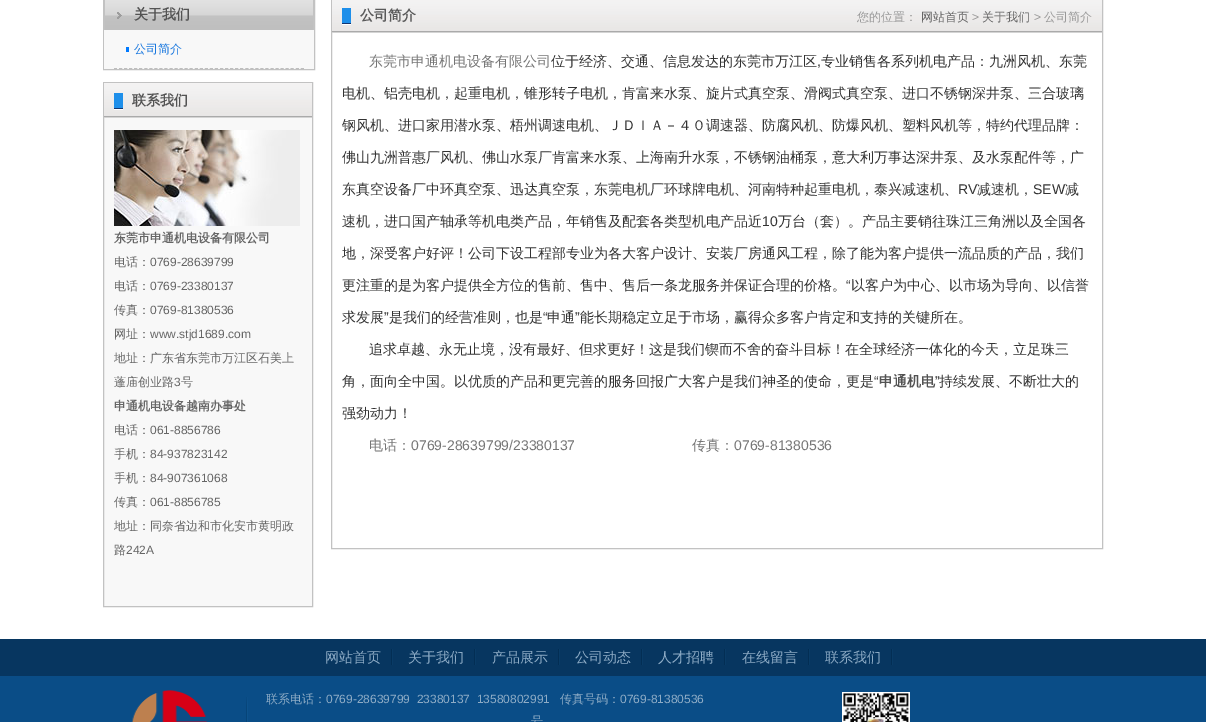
%!PS-Adobe-3.0
%%BoundingBox: 0 0 1206 722
%%LanguageLevel: 3
%%Pages: 1
%%EndComments
%%BeginProlog
/setink { dup -16 bitshift 255 div exch dup -8 bitshift 255 and 255 div exch 255 and 255 div setrgbcolor } def
/usefont { [ exch dup neg 0 0 3 -1 roll 0 0 ] selectfont } def
/drawimage { 5 dict begin { /h /w /y /x /name } { exch def } forall
  gsave x y translate w h scale
  w h 8 [w 0 0 h 0 0] name (r) file false 3 colorimage grestore end } def
%%EndProlog
%%BeginSetup
<< /PageSize [1206 722] >> setpagedevice
%%EndSetup
%%Page: 1 1
0 722 translate 1 -1 scale
4 setmiterlimit
16#FFFFFF setink
0 0 1206 722 rectfill
16#C2C2C2 setink
103.5 -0.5 211 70 rectstroke
(img1.raw) 104 0 210 30 drawimage
/WenQuanYiZenHei-Bold 14 usefont
16#535353 setink
134 19 moveto (关于我们) show
16#F8F8F8 setink
104 30 210 39 rectfill
16#BEBEBE setink
[3 2.05] 0 setdash
114 68.5 moveto 304 68.5 lineto stroke
16#007AFF setink
126 47 3 5 rectfill
/WenQuanYiZenHei-Medium 12 usefont
16#1777DF setink
134 53 moveto (公司简介) show
16#F8F8F8 setink
104 118 208 488 rectfill
16#C2C2C2 setink
[] 0 setdash
103.5 82.5 209 524 rectstroke
(img2.raw) 104 83 208 35 drawimage
(img3.raw) 114 93 9 17 drawimage
/WenQuanYiZenHei-Bold 14 usefont
16#535353 setink
132 105 moveto (联系我们) show
(img4.raw) 114 130 186 96 drawimage
/WenQuanYiZenHei-Bold 12 usefont
16#666666 setink
114 242 moveto (东莞市申通机电设备有限公司) show
/WenQuanYiZenHei-Medium 12 usefont
114 266 moveto (电话：) show
/LiberationSans-Regular 12 usefont
150 266 moveto (0769-28639799) show
/WenQuanYiZenHei-Medium 12 usefont
114 290 moveto (电话：) show
/LiberationSans-Regular 12 usefont
150 290 moveto (0769-23380137) show
/WenQuanYiZenHei-Medium 12 usefont
114 314 moveto (传真：) show
/LiberationSans-Regular 12 usefont
150 314 moveto (0769-81380536) show
/WenQuanYiZenHei-Medium 12 usefont
114 338 moveto (网址：) show
/LiberationSans-Regular 12 usefont
150 338 moveto (www.stjd1689.com) show
/WenQuanYiZenHei-Medium 12 usefont
114 362 moveto (地址：广东省东莞市万江区石美上) show
114 386 moveto (蓬庙创业路) show
/LiberationSans-Regular 12 usefont
174 386 moveto (3) show
/WenQuanYiZenHei-Medium 12 usefont
181 386 moveto (号) show
/WenQuanYiZenHei-Bold 12 usefont
114 410 moveto (申通机电设备越南办事处) show
/WenQuanYiZenHei-Medium 12 usefont
114 434 moveto (电话：) show
/LiberationSans-Regular 12 usefont
150 434 moveto (061-8856786) show
/WenQuanYiZenHei-Medium 12 usefont
114 458 moveto (手机：) show
/LiberationSans-Regular 12 usefont
150 458 moveto (84-937823142) show
/WenQuanYiZenHei-Medium 12 usefont
114 482 moveto (手机：) show
/LiberationSans-Regular 12 usefont
150 482 moveto (84-907361068) show
/WenQuanYiZenHei-Medium 12 usefont
114 506 moveto (传真：) show
/LiberationSans-Regular 12 usefont
150 506 moveto (061-8856785) show
/WenQuanYiZenHei-Medium 12 usefont
114 530 moveto (地址：同奈省边和市化安市黄明政) show
114 554 moveto (路) show
/LiberationSans-Regular 12 usefont
126 554 moveto (242A) show
16#C2C2C2 setink
331.5 -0.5 771 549 rectstroke
(img5.raw) 332 0 770 33 drawimage
(img3.raw) 342 8 9 17 drawimage
/WenQuanYiZenHei-Bold 14 usefont
16#5A5A5A setink
360 20 moveto (公司简介) show
/WenQuanYiZenHei-Medium 12 usefont
16#999999 setink
857 21 moveto (您的位置：) show
16#666666 setink
921 21 moveto (网站首页) show
/LiberationSans-Regular 12 usefont
16#999999 setink
972 21 moveto (>) show
/WenQuanYiZenHei-Medium 12 usefont
16#666666 setink
982 21 moveto (关于我们) show
/LiberationSans-Regular 12 usefont
16#999999 setink
1034 21 moveto (>) show
/WenQuanYiZenHei-Medium 12 usefont
1044 21 moveto (公司简介) show
/WenQuanYiZenHei-Medium 14 usefont
16#767676 setink
369 66 moveto (东莞市申通机电设备有限公司) show
16#333333 setink
551 66 moveto (位于经济、交通、信息发达的东莞市万江区) show
/LiberationSans-Regular 14 usefont
817 66 moveto (,) show
/WenQuanYiZenHei-Medium 14 usefont
[
    [(专业销售各系列机电产品：九洲风机、东莞) 821 66]
    [(电机、铝壳电机，起重电机，锥形转子电机，肯富来水泵、旋片式真空泵、滑阀式真空泵、进口不锈钢深井泵、三合玻璃) 342 98]
    [(钢风机、进口家用潜水泵、梧州调速电机、ＪＤＩＡ－４０调速器、防腐风机、防爆风机、塑料风机等，特约代理品牌：) 342 130]
    [(佛山九洲普惠厂风机、佛山水泵厂肯富来水泵、上海南升水泵，不锈钢油桶泵，意大利万事达深井泵、及水泵配件等，广) 342 162]
    [(东真空设备厂中环真空泵、迅达真空泵，东莞电机厂环球牌电机、河南特种起重电机，泰兴减速机、) 342 194]
] { aload pop moveto show } forall
/LiberationSans-Regular 14 usefont
958 194 moveto (RV) show
/WenQuanYiZenHei-Medium 14 usefont
977 194 moveto (减速机，) show
/LiberationSans-Regular 14 usefont
1033 194 moveto (SEW) show
/WenQuanYiZenHei-Medium 14 usefont
1065 194 moveto (减) show
342 226 moveto (速机，进口国产轴承等机电类产品，年销售及配套各类型机电产品近) show
/LiberationSans-Regular 14 usefont
762 226 moveto (10) show
/WenQuanYiZenHei-Medium 14 usefont
[
    [(万台（套）。产品主要销往珠江三角洲以及全国各) 778 226]
    [(地，深受客户好评！公司下设工程部专业为各大客户设计、安装厂房通风工程，除了能为客户提供一流品质的产品，我们) 342 258]
    [(更注重的是为客户提供全方位的售前、售中、售后一条龙服务并保证合理的价格。) 342 290]
] { aload pop moveto show } forall
/LiberationSans-Regular 14 usefont
846 290 moveto (“) show
/WenQuanYiZenHei-Medium 14 usefont
851 290 moveto (以客户为中心、以市场为导向、以信誉) show
342 322 moveto (求发展) show
/LiberationSans-Regular 14 usefont
384 322 moveto (”) show
/WenQuanYiZenHei-Medium 14 usefont
389 322 moveto (是我们的经营准则，也是) show
/LiberationSans-Regular 14 usefont
543 322 moveto (“) show
/WenQuanYiZenHei-Medium 14 usefont
547 322 moveto (申通) show
/LiberationSans-Regular 14 usefont
575 322 moveto (”) show
/WenQuanYiZenHei-Medium 14 usefont
[
    [(能长期稳定立足于市场，赢得众多客户肯定和支持的关键所在。) 580 322]
    [(追求卓越、永无止境，没有最好、但求更好！这是我们锲而不舍的奋斗目标！在全球经济一体化的今天，立足珠三) 369 354]
    [(角，面向全中国。以优质的产品和更完善的服务回报广大客户是我们神圣的使命，更是) 342 386]
] { aload pop moveto show } forall
/LiberationSans-Regular 14 usefont
874 386 moveto (“) show
/WenQuanYiZenHei-Bold 14 usefont
16#535353 setink
879 386 moveto (申通机电) show
/LiberationSans-Regular 14 usefont
16#333333 setink
935 386 moveto (”) show
/WenQuanYiZenHei-Medium 14 usefont
939 386 moveto (持续发展、不断壮大的) show
342 418 moveto (强劲动力！) show
16#767676 setink
369 450 moveto (电话：) show
/LiberationSans-Regular 14 usefont
411 450 moveto (0769-28639799/23380137) show
/WenQuanYiZenHei-Medium 14 usefont
692 450 moveto (传真：) show
/LiberationSans-Regular 14 usefont
734 450 moveto (0769-81380536) show
16#0A4D87 setink
0 676 1206 46 rectfill
16#073660 setink
0 639 1206 37 rectfill
/WenQuanYiZenHei-Medium 14 usefont
16#8EACC6 setink
325 662 moveto (网站首页) show
(img6.raw) 391 649 2 16 drawimage
408 662 moveto (关于我们) show
(img6.raw) 474 649 2 16 drawimage
492 662 moveto (产品展示) show
(img6.raw) 558 649 2 16 drawimage
575 662 moveto (公司动态) show
(img6.raw) 641 649 2 16 drawimage
658 662 moveto (人才招聘) show
(img6.raw) 724 649 2 16 drawimage
742 662 moveto (在线留言) show
(img6.raw) 808 649 2 16 drawimage
825 662 moveto (联系我们) show
(img6.raw) 891 649 2 16 drawimage
(img7.raw) 131 690 77 32 drawimage
(img8.raw) 246 697 2 25 drawimage
/WenQuanYiZenHei-Medium 12 usefont
266 703 moveto (联系电话：) show
/LiberationSans-Regular 12 usefont
326 703 moveto (0769-28639799  23380137  13580802991) show
/WenQuanYiZenHei-Medium 12 usefont
560 703 moveto (传真号码：) show
/LiberationSans-Regular 12 usefont
620 703 moveto (0769-81380536) show
/WenQuanYiZenHei-Medium 12 usefont
531 725 moveto (号) show
(img9.raw) 842 692 68 30 drawimage
showpage
%%EOF
